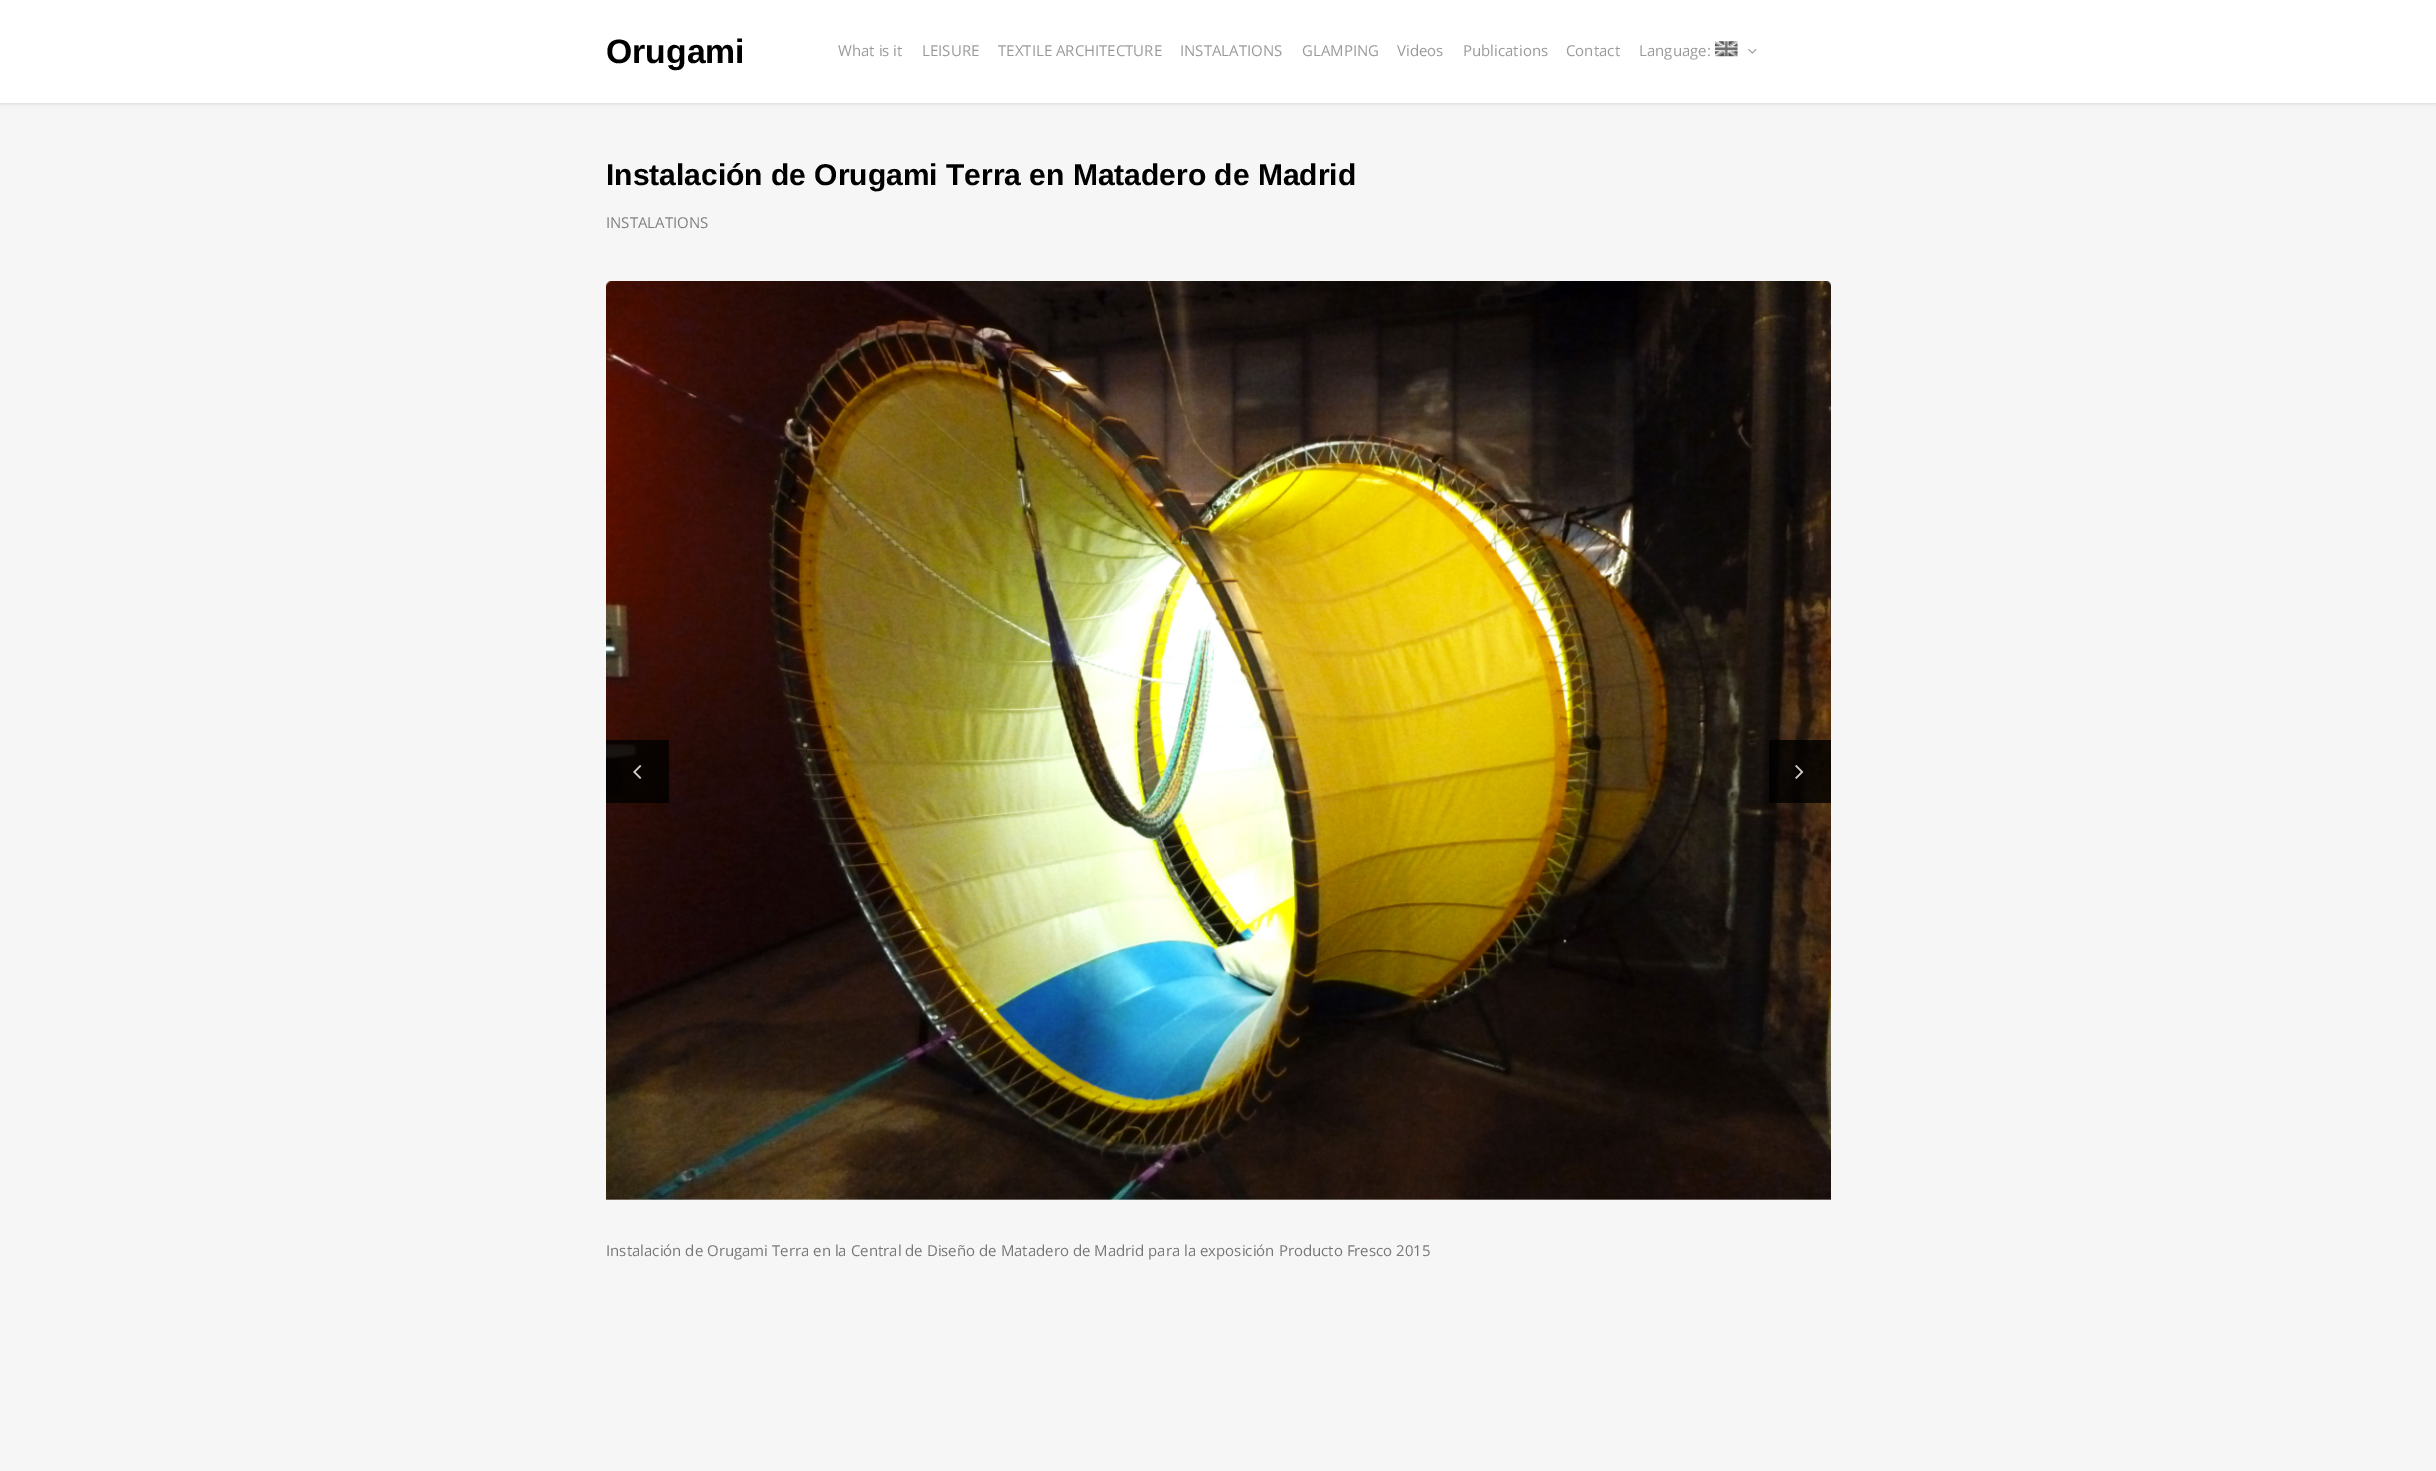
%!PS-Adobe-3.0
%%BoundingBox: 0 0 2436 1471
%%LanguageLevel: 3
%%Pages: 1
%%EndComments
%%BeginProlog
/setink { dup -16 bitshift 255 div exch dup -8 bitshift 255 and 255 div exch 255 and 255 div setrgbcolor } def
/usefont { [ exch dup neg 0 0 3 -1 roll 0 0 ] selectfont } def
/setalpha { dup .setfillconstantalpha .setstrokeconstantalpha } def
/rrect { 5 dict begin { /r /h /w /y /x } { exch def } forall
  x r add y moveto x w add y 2 copy h add r arct x w add y h add x 1 index r arct
  x y h add x y r arct x y 2 copy exch w add exch r arct closepath end } def
/softshadow { 12 dict begin { /a /b /q /h /w /y /x } { exch def } forall gsave /was 0 def
  9 -2 -9 { dup b mul 4 div /e exch def 1 sub .425 mul 2.718 exch exp 1 add a .99 .min exch div /now exch def
    1 1 now sub 1 was sub div sub setalpha /was now def
    w h .min e 2 mul add 0 gt { x e sub y e sub w e 2 mul add h e 2 mul add
      q e add b .6 mul add w h .min 2 div e add .min 0 .max rrect fill } if } for grestore end } def
/drawimage { 5 dict begin { /h /w /y /x /name } { exch def } forall
  gsave x y translate w h scale
  w h 8 [w 0 0 h 0 0] name (r) file false 3 colorimage grestore end } def
%%EndProlog
%%BeginSetup
<< /PageSize [2436 1471] /PageUsesTransparency true >> setpagedevice
%%EndSetup
%%Page: 1 1
0 .pushpdf14devicefilter
0 1471 translate 1 -1 scale
4 setmiterlimit
16#F6F6F6 setink
0 0 2436 1471 rectfill
16#000000 setink
0 0 2436 104 0 2 0.1 softshadow
16#FFFFFF setink
0 0 2436 103 rectfill
16#E4E4E4 setink
0 103 2436 1 rectfill
/LiberationSans-Bold 33.75 usefont
16#000000 setink
606 63 moveto (Orugami) show
/OpenSans-Regular 15 usefont
16#999999 setink
[
    [(What is it) 838 56]
    [(LEISURE) 922 56]
    [(TEXTILE ARCHITECTURE) 998 56]
    [(INSTALATIONS) 1180 56]
    [(GLAMPING) 1302 56]
    [(Videos) 1397 56]
    [(Publications) 1463 56]
    [(Contact) 1566 56]
    [(Language:) 1639 56]
] { aload pop moveto show } forall
(img1.raw) 1715 41 23 16 drawimage
(img2.raw) 1748 49 9 5 drawimage
/LiberationSans-Bold 30 usefont
16#000000 setink
606 185 moveto (Instalación de Orugami Terra en Matadero de Madrid) show
/OpenSans-Regular 15 usefont
16#808080 setink
606 228 moveto (INSTALATIONS) show
(img3.raw) 606 281 1225 919 drawimage
0.8 setalpha
16#000000 setink
606 740 63 63 rectfill
1 setalpha
(img4.raw) 633 765 9 14 drawimage
0.8 setalpha
1769 740 62 63 rectfill
1 setalpha
(img5.raw) 1795 765 9 14 drawimage
16#777777 setink
606 1256 moveto (Instalación de Orugami Terra en la Central de Diseño de Matadero de Madrid para la exposición Producto Fresco 2015) show
.poppdf14devicefilter showpage
%%EOF
